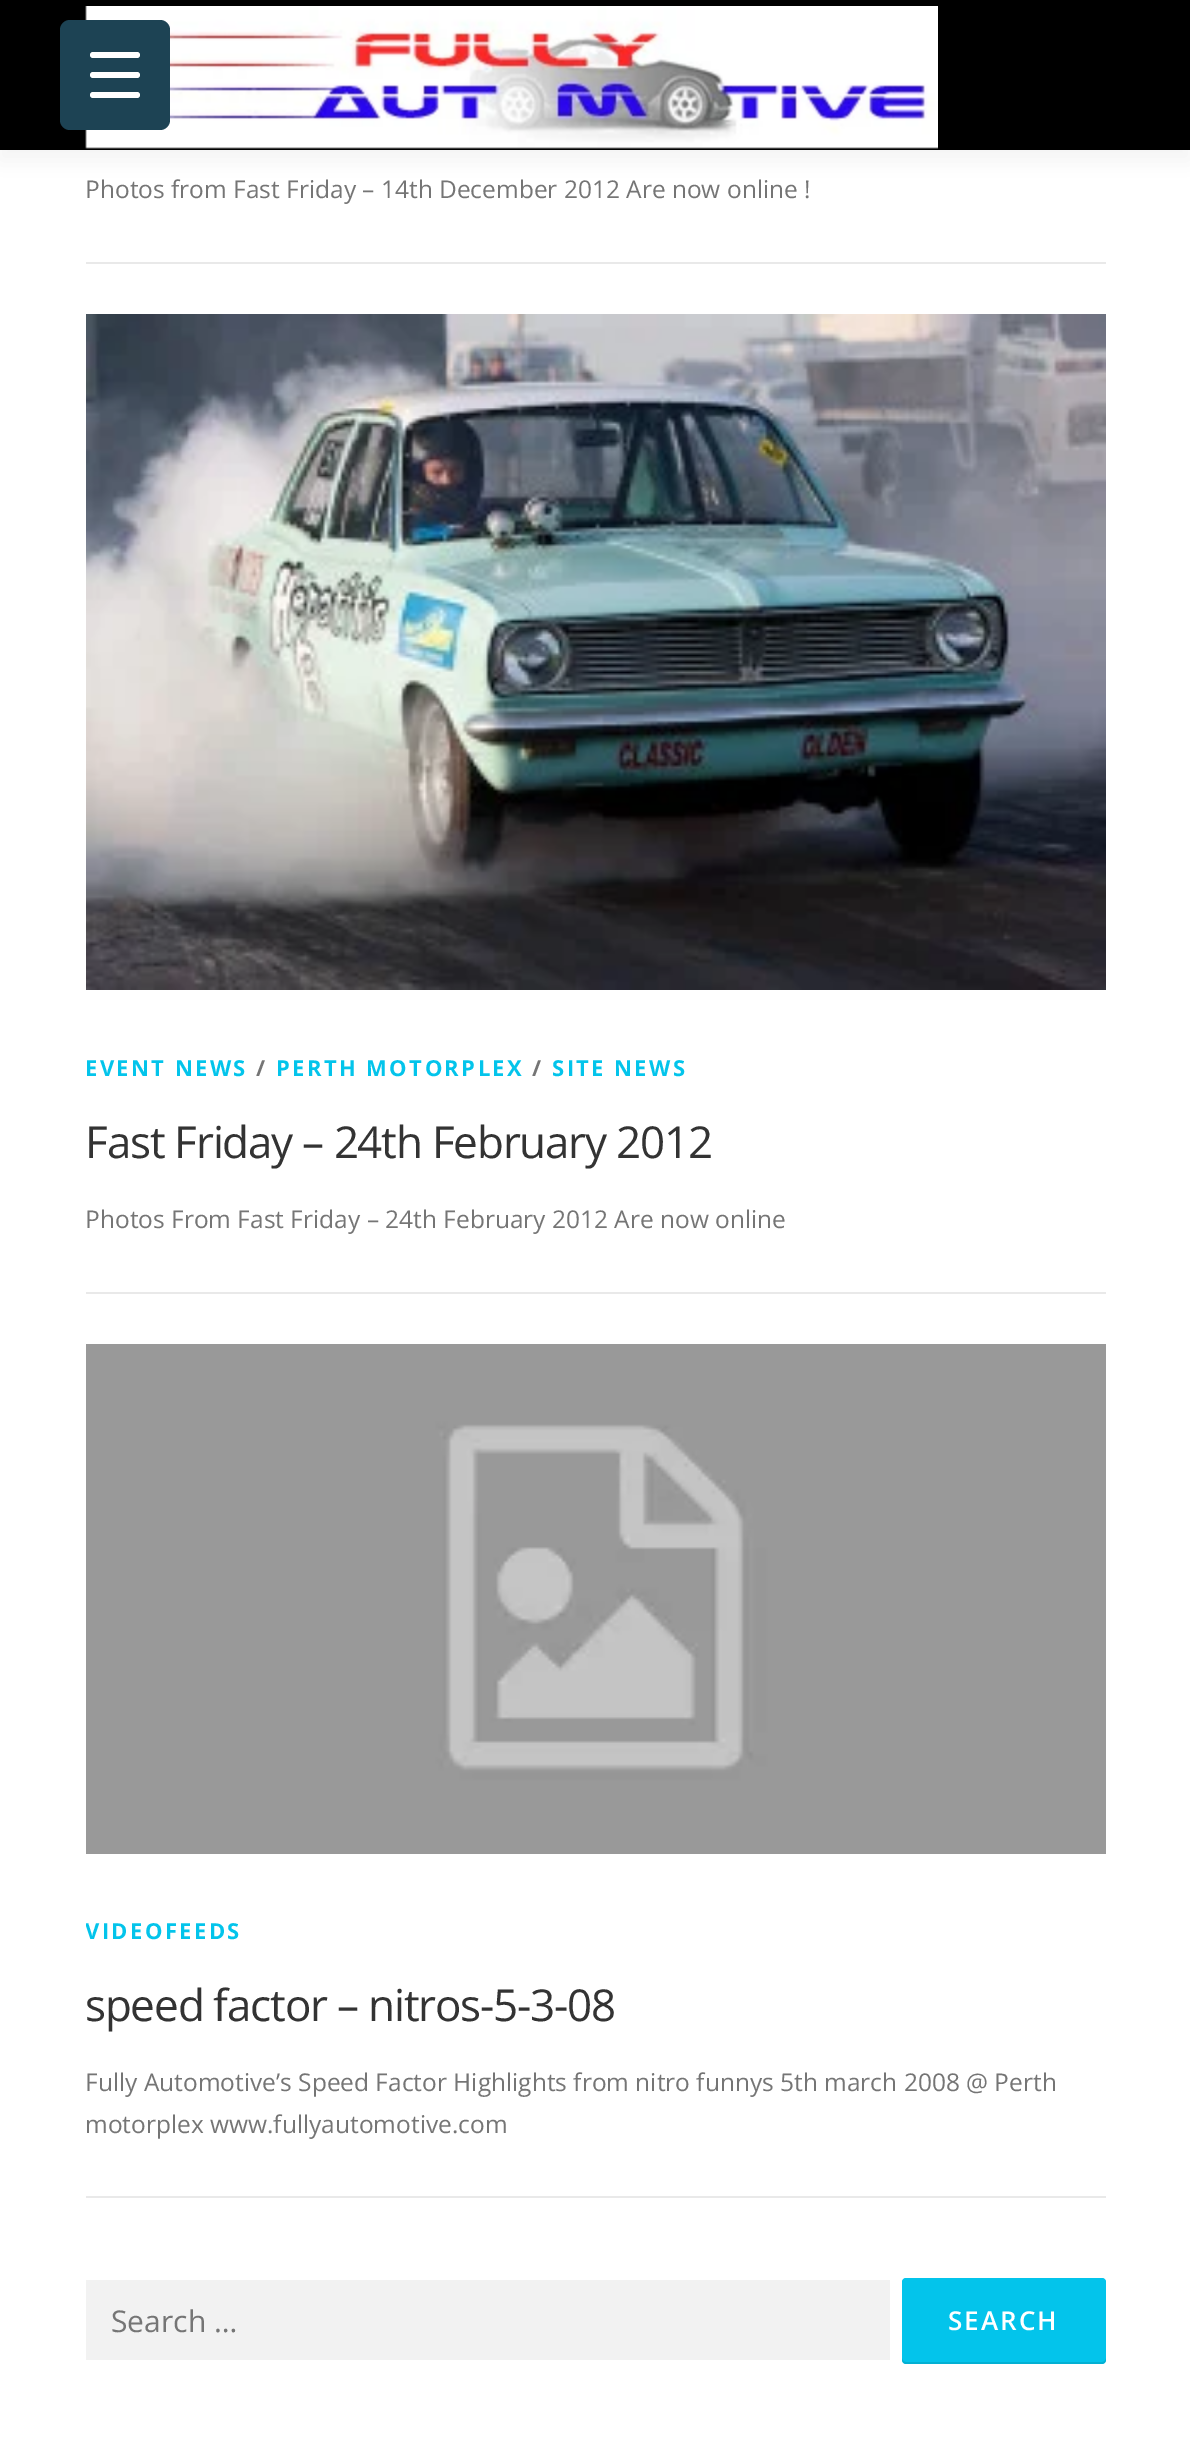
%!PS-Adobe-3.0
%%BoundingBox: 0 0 1190 2439
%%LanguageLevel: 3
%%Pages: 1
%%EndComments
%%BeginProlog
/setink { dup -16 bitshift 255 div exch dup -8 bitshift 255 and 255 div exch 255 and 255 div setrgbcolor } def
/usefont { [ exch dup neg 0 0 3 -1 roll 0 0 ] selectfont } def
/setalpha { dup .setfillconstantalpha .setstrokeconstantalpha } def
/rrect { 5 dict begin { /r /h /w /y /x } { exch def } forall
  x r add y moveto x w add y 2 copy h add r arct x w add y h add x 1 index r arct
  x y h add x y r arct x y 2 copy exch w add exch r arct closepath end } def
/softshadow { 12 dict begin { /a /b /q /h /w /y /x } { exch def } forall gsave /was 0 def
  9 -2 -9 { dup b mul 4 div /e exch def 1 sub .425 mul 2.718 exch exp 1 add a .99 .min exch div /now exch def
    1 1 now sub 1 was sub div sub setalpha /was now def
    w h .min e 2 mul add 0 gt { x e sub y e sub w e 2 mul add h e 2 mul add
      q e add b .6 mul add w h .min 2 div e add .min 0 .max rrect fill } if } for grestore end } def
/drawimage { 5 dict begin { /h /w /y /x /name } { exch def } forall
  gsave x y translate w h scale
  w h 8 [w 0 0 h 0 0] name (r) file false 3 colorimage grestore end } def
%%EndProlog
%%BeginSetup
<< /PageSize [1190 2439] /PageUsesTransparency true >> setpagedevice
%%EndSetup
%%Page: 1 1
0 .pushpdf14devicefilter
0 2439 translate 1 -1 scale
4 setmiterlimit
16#FFFFFF setink
0 0 1190 2439 rectfill
16#323232 setink
0 10 1190 150 0 10 0.06 softshadow
16#000000 setink
0 0 1190 150 rectfill
(img1.raw) 85 6 853 143 drawimage
16#1D4354 setink
60 20 110 110 10 rrect fill
16#FFFFFF setink
90 72 50 6 3 rrect fill
90 52 50 6 3 rrect fill
90 92 50 6 3 rrect fill
/OpenSans-Regular 24.5 usefont
16#757575 setink
85 198 moveto (Photos from Fast Friday – 14th December 2012 Are now online !) show
16#E9E9E9 setink
86 262 1020 2 rectfill
(img2.raw) 86 314 1020 676 drawimage
/OpenSans-Bold 22 usefont
16#03C4EB setink
85 1076 moveto 2.4 0 (EVENT NEWS) ashow
16#757575 setink
256 1076 moveto 2.4 0 (/) ashow
16#03C4EB setink
276 1076 moveto 2.4 0 (PERTH MOTORPLEX) ashow
16#757575 setink
532 1076 moveto 2.4 0 (/) ashow
16#03C4EB setink
552 1076 moveto 2.4 0 (SITE NEWS) ashow
/OpenSans-Regular 44 usefont
16#333333 setink
85 1158 moveto -1.2 0 (Fast Friday – 24th February 2012) ashow
/OpenSans-Regular 24.5 usefont
16#757575 setink
85 1228 moveto (Photos From Fast Friday – 24th February 2012 Are now online) show
16#E9E9E9 setink
86 1292 1020 2 rectfill
86 2196 1020 2 rectfill
(img3.raw) 86 1344 1020 510 drawimage
gsave
86 1914 1020 232 rectclip
/OpenSans-Bold 22 usefont
16#03C4EB setink
85 1939 moveto 2.4 0 (VIDEOFEEDS) ashow
grestore
/OpenSans-Regular 44 usefont
16#333333 setink
85 2021 moveto -1.2 0 (speed factor – nitros-5-3-08) ashow
/OpenSans-Regular 24.5 usefont
16#757575 setink
85 2091 moveto (Fully Automotive’s Speed Factor Highlights from nitro funnys 5th march 2008 @ Perth) show
85 2133 moveto (motorplex www.fullyautomotive.com) show
16#F2F2F2 setink
86 2280 804 80 rectfill
/OpenSans-Regular 30 usefont
16#757575 setink
111 2332 moveto (Search …) show
16#03C4EB setink
902 2278 204 86 4 rrect fill
0.1 setalpha
16#000000 setink
902 2358 moveto 902 2360 lineto 902 2362 904 2364 906 2364 curveto 1102 2364 lineto 1104 2364 1106 2362 1106 2360 curveto 1106 2358 lineto 1106 2360 1104 2362 1102 2362 curveto 906 2362 lineto 904 2362 902 2360 902 2358 curveto closepath fill
/OpenSans-SemiBold 26 usefont
1 setalpha
16#FFFFFF setink
948 2330 moveto 2 0 (SEARCH) ashow
.poppdf14devicefilter showpage
%%EOF
